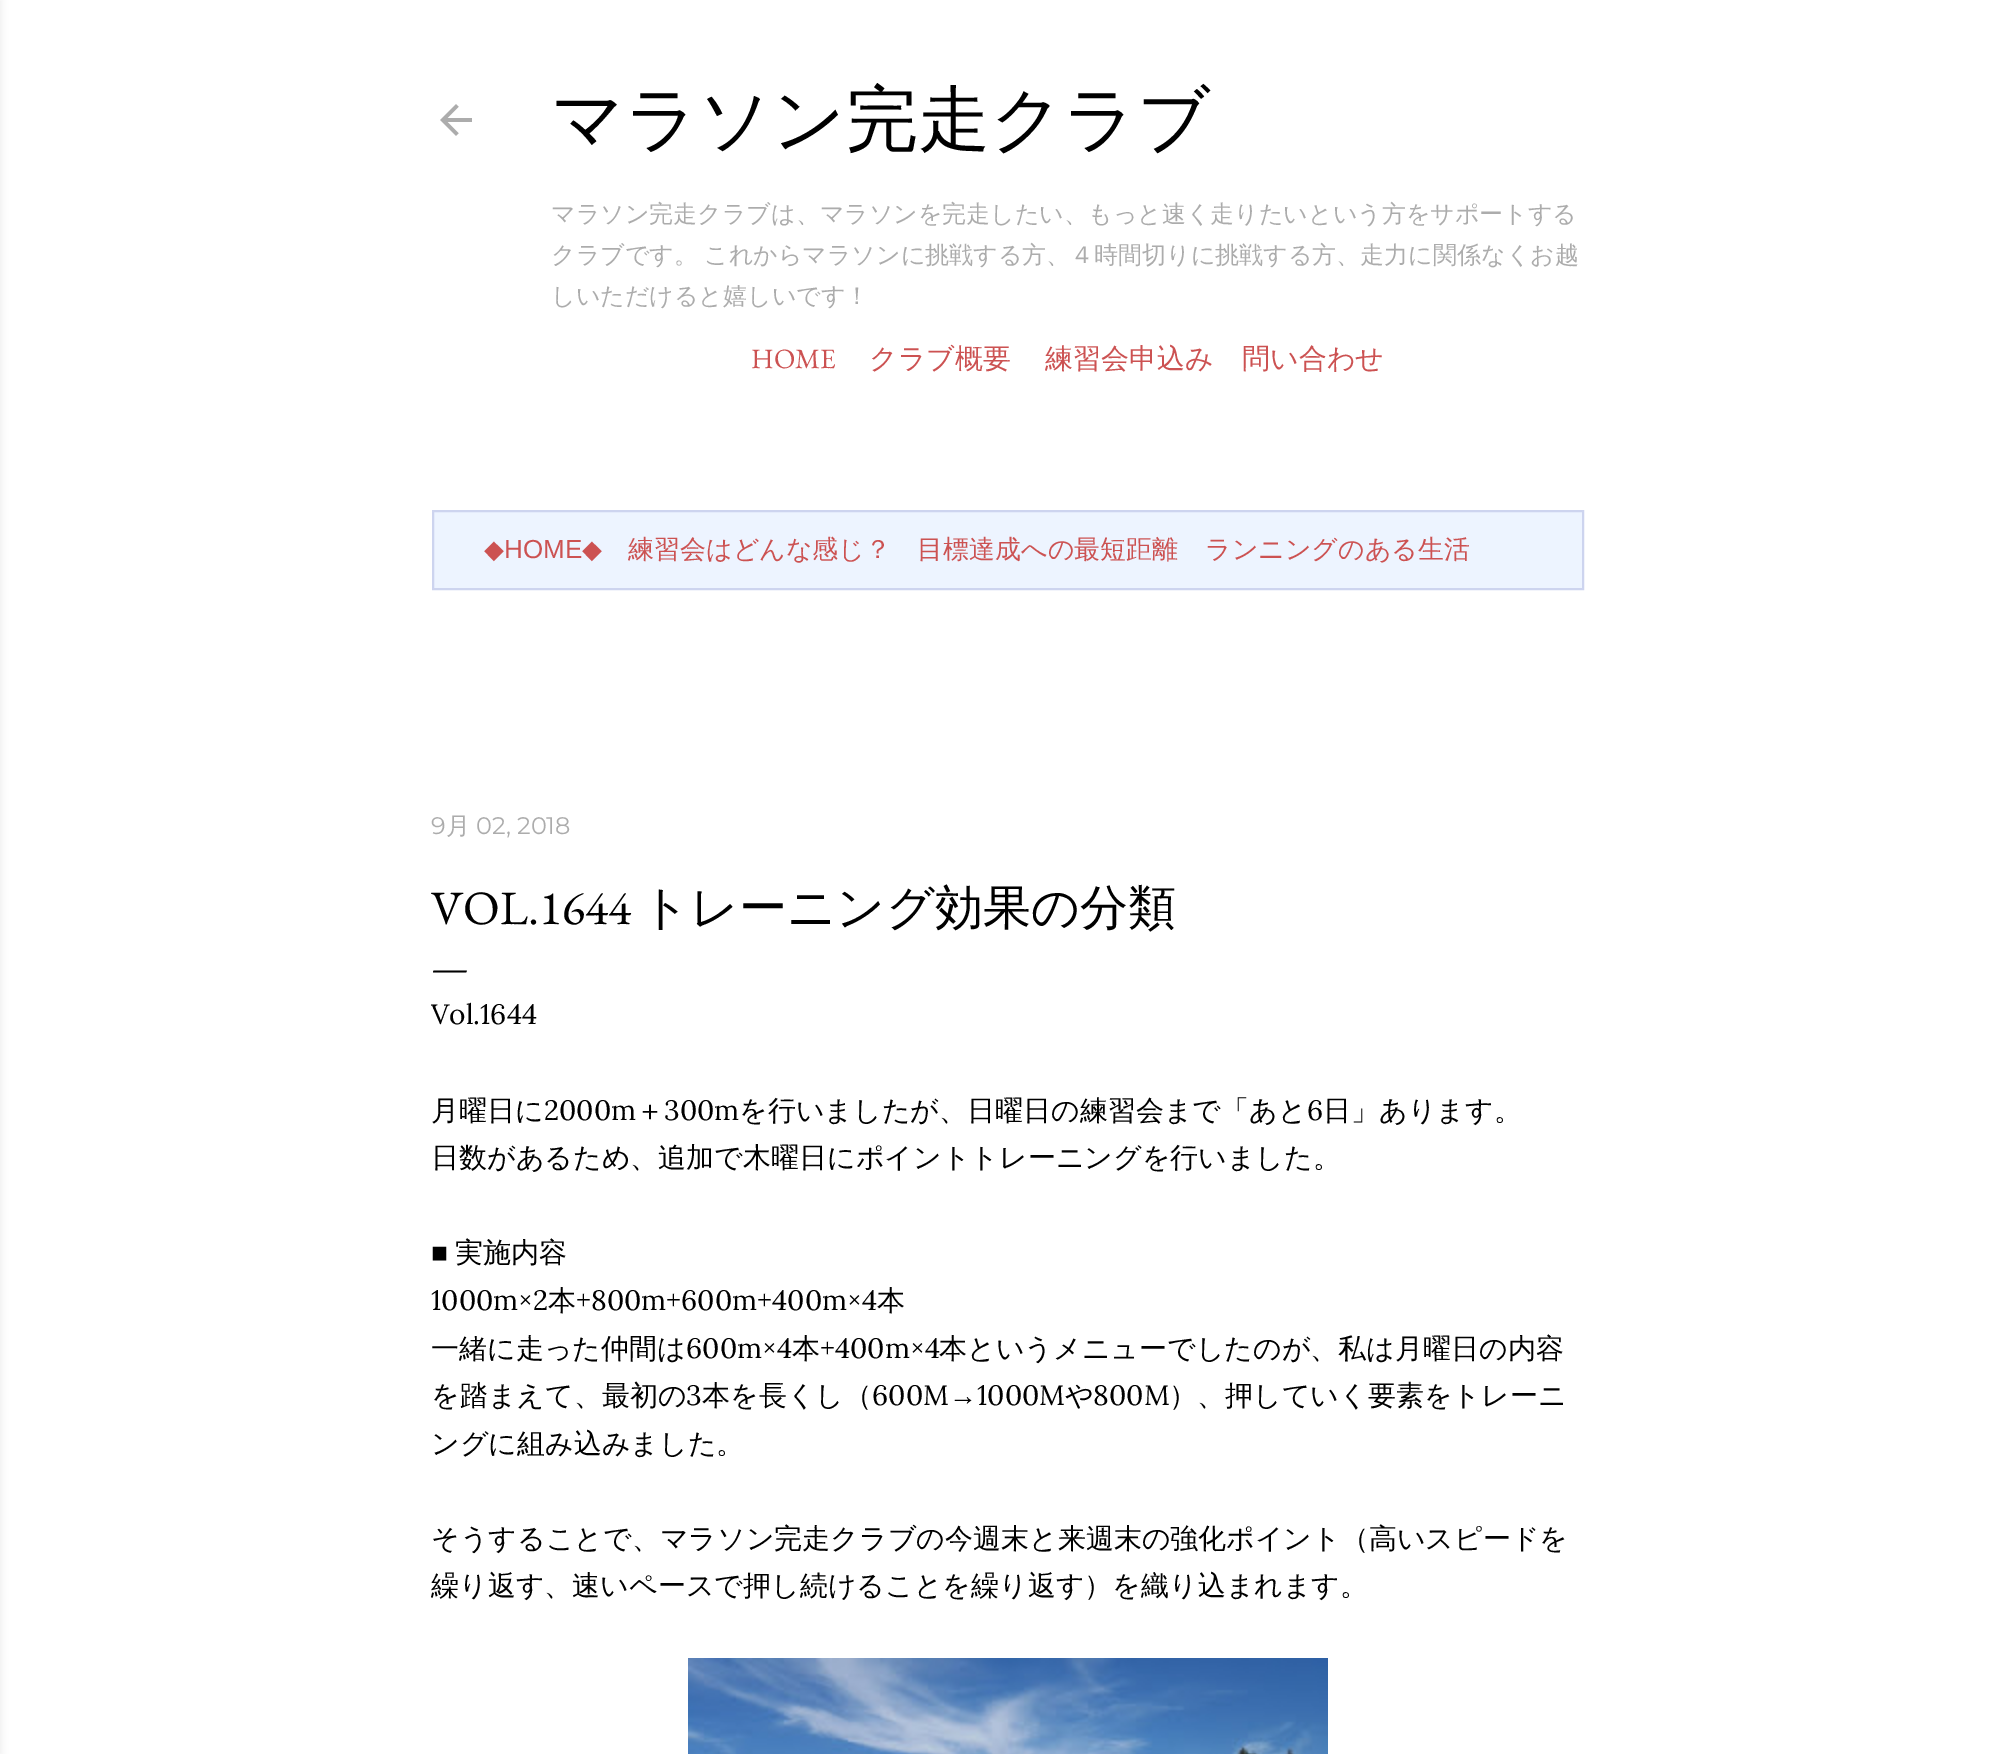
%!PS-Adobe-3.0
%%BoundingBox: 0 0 2014 1754
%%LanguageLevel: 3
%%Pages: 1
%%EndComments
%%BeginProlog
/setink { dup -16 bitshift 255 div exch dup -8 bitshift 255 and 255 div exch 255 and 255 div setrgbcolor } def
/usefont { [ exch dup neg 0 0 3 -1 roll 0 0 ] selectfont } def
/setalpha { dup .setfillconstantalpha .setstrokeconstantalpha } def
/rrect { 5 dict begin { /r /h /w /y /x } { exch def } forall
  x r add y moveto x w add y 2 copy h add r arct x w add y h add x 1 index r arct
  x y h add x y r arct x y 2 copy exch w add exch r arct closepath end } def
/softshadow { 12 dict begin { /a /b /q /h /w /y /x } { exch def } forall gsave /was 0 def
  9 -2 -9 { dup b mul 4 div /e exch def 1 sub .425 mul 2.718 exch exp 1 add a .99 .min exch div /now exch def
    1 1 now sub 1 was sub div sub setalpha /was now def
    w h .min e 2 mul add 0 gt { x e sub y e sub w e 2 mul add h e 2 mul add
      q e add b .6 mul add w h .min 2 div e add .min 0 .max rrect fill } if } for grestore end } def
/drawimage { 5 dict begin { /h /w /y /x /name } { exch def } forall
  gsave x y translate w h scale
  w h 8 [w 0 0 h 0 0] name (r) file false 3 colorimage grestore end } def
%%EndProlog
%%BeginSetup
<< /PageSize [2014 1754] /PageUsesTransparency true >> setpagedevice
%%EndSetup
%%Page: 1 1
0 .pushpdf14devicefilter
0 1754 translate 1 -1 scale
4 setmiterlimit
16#FFFFFF setink
0 0 2014 1754 rectfill
16#666666 setink
-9 0 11 1754 0 3 0.1 softshadow
(img1.raw) 440 104 32 32 drawimage
/WenQuanYiZenHei-Medium 72 usefont
16#000000 setink
551 144 moveto (マラソン完走クラブ) show
/WenQuanYiZenHei-Medium 24 usefont
16#ACACAC setink
551 222 moveto (マラソン完走クラブは、マラソンを完走したい、もっと速く走りたいという方をサポートする) show
551 263 moveto -1 0 32 (クラブです。 これからマラソンに挑戦する方、４時間切りに挑戦する方、走力に関係なくお越) widthshow
551 304 moveto (しいただけると嬉しいです！) show
/EBGaramond-Regular 28 usefont
16#CC5252 setink
751 368 moveto (HOME) show
/WenQuanYiZenHei-Medium 28 usefont
[
    [(クラブ概要) 869 368]
    [(練習会申込み) 1045 368]
    [(問い合わせ) 1242 368]
] { aload pop moveto show } forall
16#EDF4FF setink
433 511 moveto 1583 511 lineto 1583 589 lineto 433 589 lineto closepath gsave fill grestore
16#CDD4EF setink
2 setlinewidth
stroke
/DejaVuSans-Regular 26 usefont
16#CC5252 setink
484 558 moveto (◆) show
/LiberationSans-Regular 26 usefont
504 558 moveto (HOME) show
/DejaVuSans-Regular 26 usefont
582 558 moveto (◆) show
/WenQuanYiZenHei-Medium 26 usefont
[
    [(練習会はどんな感じ？) 628 558]
    [(目標達成への最短距離) 917 558]
    [(ランニングのある生活) 1205 558]
] { aload pop moveto show } forall
/Montserrat-Thin 24 usefont
16#ACACAC setink
431 834 moveto (9) show
/WenQuanYiZenHei-Medium 24 usefont
446 834 moveto (月) show
/Montserrat-Thin 24 usefont
476 834 moveto (02, 2018) show
/EBGaramond-Regular 48 usefont
16#000000 setink
431 924 moveto (VOL.1644) show
/WenQuanYiZenHei-Medium 48 usefont
641 924 moveto (トレーニング効果の分類) show
/EBGaramond-Regular 40 usefont
431 980 moveto (—) show
/Lora-Regular 28 usefont
431 1024 moveto (Vol.1644) show
/WenQuanYiZenHei-Medium 28 usefont
431 1120 moveto (月曜日に) show
/Lora-Regular 28 usefont
544 1120 moveto (2000m) show
/WenQuanYiZenHei-Medium 28 usefont
636 1120 moveto (＋) show
/Lora-Regular 28 usefont
664 1120 moveto (300m) show
/WenQuanYiZenHei-Medium 28 usefont
739 1120 moveto (を行いましたが、日曜日の練習会まで「あと) show
/Lora-Regular 28 usefont
1307 1120 moveto (6) show
/WenQuanYiZenHei-Medium 28 usefont
1323 1120 moveto (日」あります。) show
431 1167 moveto (日数があるため、追加で木曜日にポイントトレーニングを行いました。) show
/LiberationSerif-Regular 28 usefont
431 1262 moveto (■) show
/WenQuanYiZenHei-Medium 28 usefont
455 1262 moveto (実施内容) show
/Lora-Regular 28 usefont
431 1310 moveto (1000m×2) show
/WenQuanYiZenHei-Medium 28 usefont
548 1310 moveto (本) show
/Lora-Regular 28 usefont
576 1310 moveto (+800m+600m+400m×4) show
/WenQuanYiZenHei-Medium 28 usefont
877 1310 moveto (本) show
431 1358 moveto (一緒に走った仲間は) show
/Lora-Regular 28 usefont
686 1358 moveto (600m×4) show
/WenQuanYiZenHei-Medium 28 usefont
792 1358 moveto (本) show
/Lora-Regular 28 usefont
820 1358 moveto (+400m×4) show
/WenQuanYiZenHei-Medium 28 usefont
939 1358 moveto (本というメニューでしたのが、私は月曜日の内容) show
431 1405 moveto (を踏まえて、最初の) show
/Lora-Regular 28 usefont
686 1405 moveto (3) show
/WenQuanYiZenHei-Medium 28 usefont
702 1405 moveto (本を長くし（) show
/Lora-Regular 28 usefont
872 1405 moveto (600M) show
/LiberationSerif-Regular 28 usefont
949 1405 moveto (→) show
/Lora-Regular 28 usefont
977 1405 moveto (1000M) show
/WenQuanYiZenHei-Medium 28 usefont
1065 1405 moveto (や) show
/Lora-Regular 28 usefont
1093 1405 moveto (800M) show
/WenQuanYiZenHei-Medium 28 usefont
[
    [(）、押していく要素をトレーニ) 1169 1405]
    [(ングに組み込みました。) 431 1453]
    [(そうすることで、マラソン完走クラブの今週末と来週末の強化ポイント（高いスピードを) 431 1548]
    [(繰り返す、速いペースで押し続けることを繰り返す）を織り込まれます。) 431 1595]
] { aload pop moveto show } forall
(img2.raw) 688 1658 640 96 drawimage
.poppdf14devicefilter showpage
%%EOF
